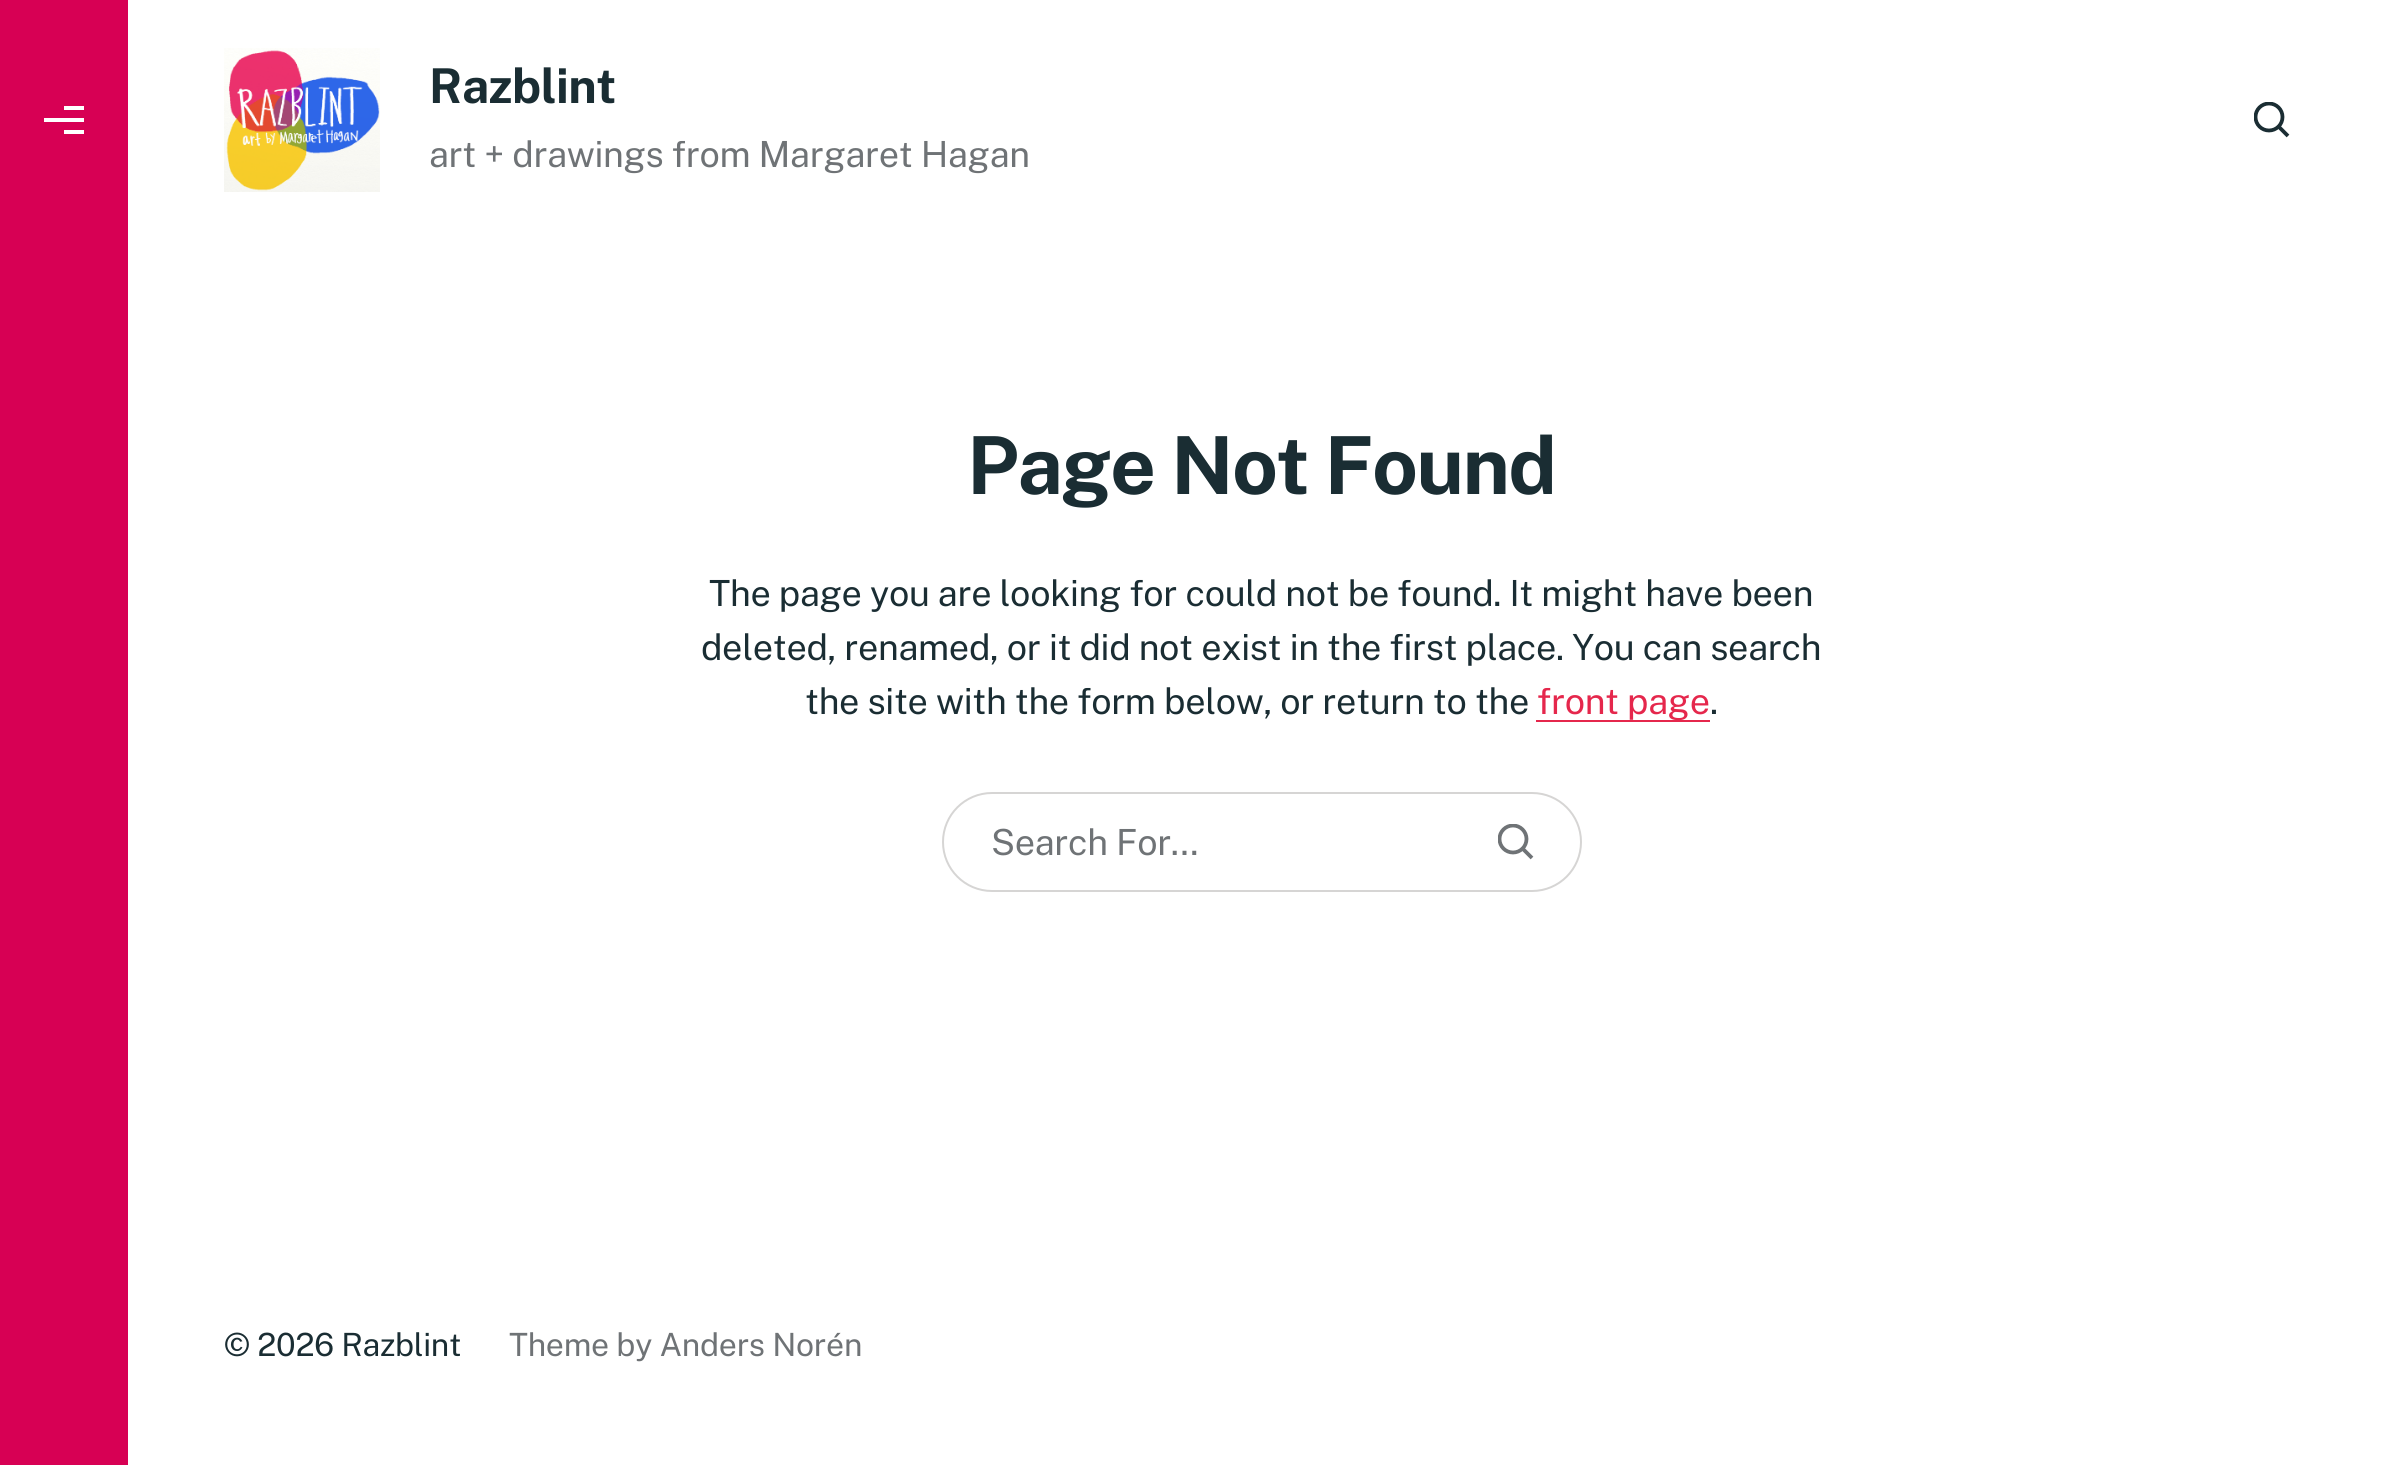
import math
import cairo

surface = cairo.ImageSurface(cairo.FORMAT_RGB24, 2394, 1465)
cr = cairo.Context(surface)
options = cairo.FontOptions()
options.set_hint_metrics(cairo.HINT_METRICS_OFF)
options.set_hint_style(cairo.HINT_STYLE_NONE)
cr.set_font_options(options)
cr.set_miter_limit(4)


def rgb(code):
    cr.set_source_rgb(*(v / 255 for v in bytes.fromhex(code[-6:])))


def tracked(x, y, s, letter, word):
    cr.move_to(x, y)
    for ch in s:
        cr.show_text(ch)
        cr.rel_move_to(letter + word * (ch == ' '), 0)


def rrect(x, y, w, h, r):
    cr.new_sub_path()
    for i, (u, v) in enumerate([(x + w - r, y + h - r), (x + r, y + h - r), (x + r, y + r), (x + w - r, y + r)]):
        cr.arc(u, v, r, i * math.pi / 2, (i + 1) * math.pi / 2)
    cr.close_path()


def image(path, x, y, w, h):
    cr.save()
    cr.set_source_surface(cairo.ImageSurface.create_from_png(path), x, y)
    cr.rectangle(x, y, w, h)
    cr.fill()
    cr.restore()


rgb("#ffffff")
cr.paint()
for x, y, w, h, color in [
    (0, 0, 128, 1465, "#d70054"),
    (64, 106, 20, 4, "#ffffff"),
    (44, 118, 40, 4, "#ffffff"),
    (64, 130, 20, 4, "#ffffff"),
]:
    rgb(color)
    cr.rectangle(x, y, w, h)
    cr.fill()
image("img/1.png", 224, 48, 156, 144)
cr.save()
cr.rectangle(2254, 102, 36, 36)
cr.clip()
cr.arc(2269, 117, 13.5, 0, 2 * math.pi)
rgb("#1a2d33")
cr.set_line_width(3.8)
cr.stroke()
cr.restore()
cr.new_path()
cr.move_to(2288, 136)
cr.line_to(2277.5, 125.5)
rgb("#1a2d33")
cr.set_line_width(3.8)
cr.stroke()
rgb("#e5274c")
cr.rectangle(1536, 720, 174, 2)
cr.fill()
rrect(943, 793, 638, 98, 49)
rgb("#d6d5d4")
cr.set_line_width(2)
cr.stroke()
cr.save()
cr.rectangle(1498, 824, 36, 36)
cr.clip()
cr.arc(1513, 839, 13.5, 0, 2 * math.pi)
rgb("#6f7376")
cr.set_line_width(3.8)
cr.stroke()
cr.restore()
cr.new_path()
cr.move_to(1532, 858)
cr.line_to(1521.5, 847.5)
rgb("#6f7376")
cr.set_line_width(3.8)
cr.stroke()
cr.select_font_face("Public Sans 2 Thin")
cr.set_font_size(48)
rgb("#1a2d33")
tracked(429, 103, "Razblint", -0.5, 0)
cr.select_font_face("Public Sans Thin")
cr.set_font_size(36)
rgb("#6f7376")
tracked(429, 167, "art + drawings from Margaret Hagan", -0.35, 0)
cr.select_font_face("Public Sans 2 Thin")
cr.set_font_size(80)
rgb("#1a2d33")
tracked(967, 494, "Page Not Found", -1.6, 0)
cr.select_font_face("Public Sans Thin")
cr.set_font_size(36)
for x, y, s in [
    (709, 606, "The page you are looking for could not be found. It might have been"),
    (701, 660, "deleted, renamed, or it did not exist in the first place. You can search"),
    (805, 714, "the site with the form below, or return to the"),
]:
    tracked(x, y, s, -0.35, 0)
rgb("#e5274c")
tracked(1537, 714, "front page", -0.35, 0)
rgb("#1a2d33")
tracked(1710, 714, ".", -0.35, 0)
rgb("#6f7376")
tracked(991, 855, "Search For…", -0.35, 0)
cr.set_font_size(32)
rgb("#1a2d33")
tracked(224, 1356, "© 2026 Razblint", -0.3, 0)
rgb("#6f7376")
tracked(509, 1356, "Theme by Anders Norén", -0.3, 0)
surface.write_to_png("page.png")
